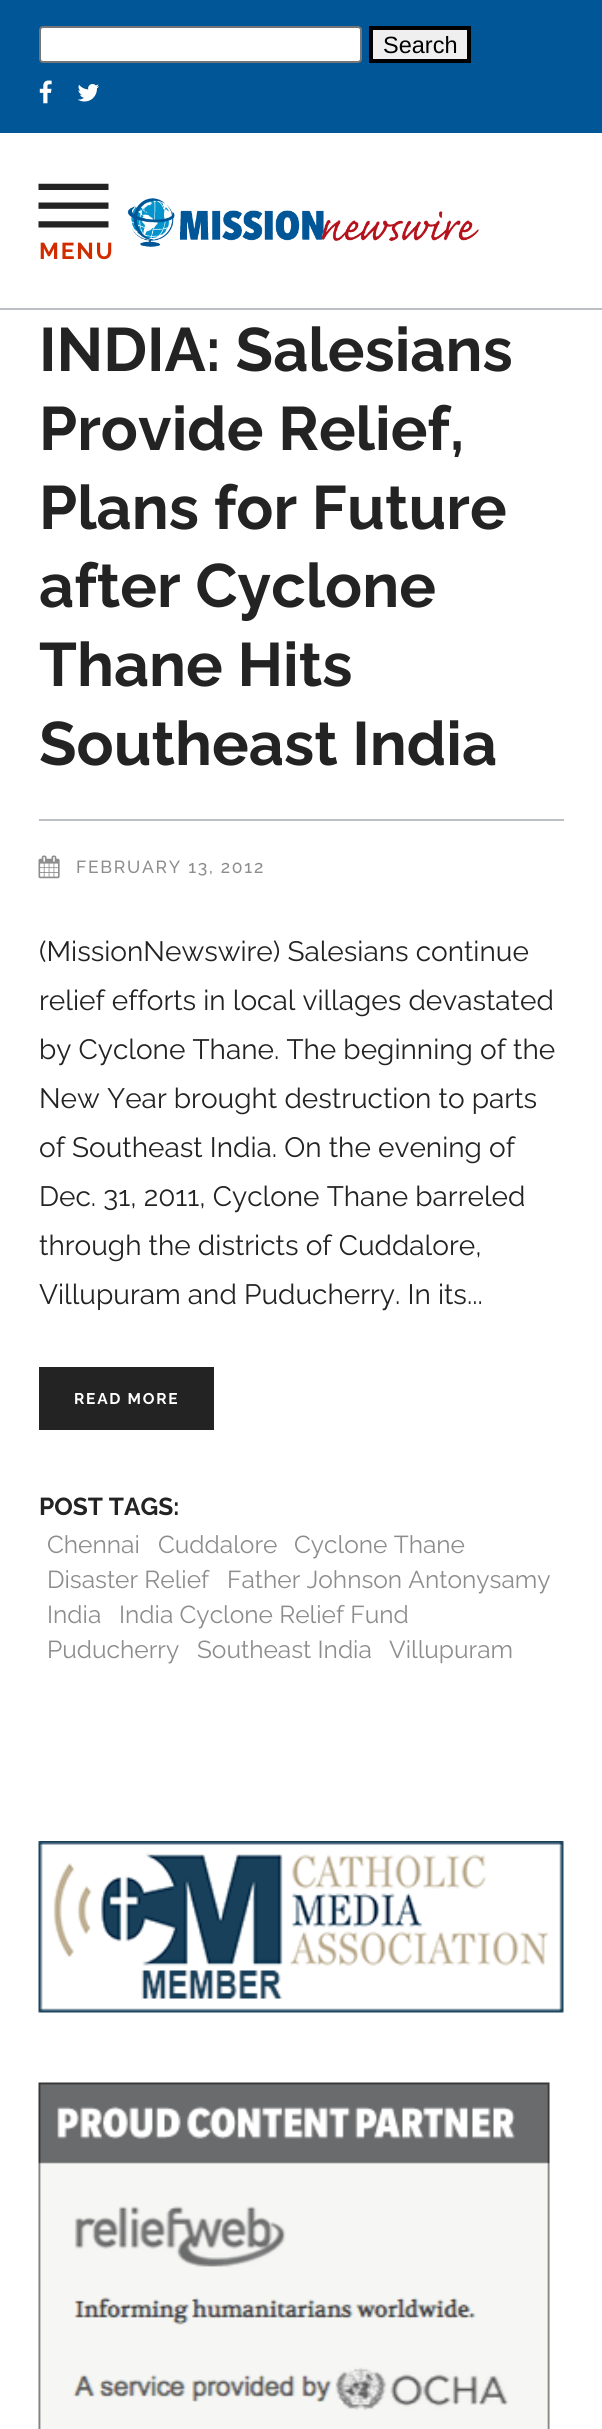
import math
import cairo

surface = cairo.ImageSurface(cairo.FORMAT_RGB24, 602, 2429)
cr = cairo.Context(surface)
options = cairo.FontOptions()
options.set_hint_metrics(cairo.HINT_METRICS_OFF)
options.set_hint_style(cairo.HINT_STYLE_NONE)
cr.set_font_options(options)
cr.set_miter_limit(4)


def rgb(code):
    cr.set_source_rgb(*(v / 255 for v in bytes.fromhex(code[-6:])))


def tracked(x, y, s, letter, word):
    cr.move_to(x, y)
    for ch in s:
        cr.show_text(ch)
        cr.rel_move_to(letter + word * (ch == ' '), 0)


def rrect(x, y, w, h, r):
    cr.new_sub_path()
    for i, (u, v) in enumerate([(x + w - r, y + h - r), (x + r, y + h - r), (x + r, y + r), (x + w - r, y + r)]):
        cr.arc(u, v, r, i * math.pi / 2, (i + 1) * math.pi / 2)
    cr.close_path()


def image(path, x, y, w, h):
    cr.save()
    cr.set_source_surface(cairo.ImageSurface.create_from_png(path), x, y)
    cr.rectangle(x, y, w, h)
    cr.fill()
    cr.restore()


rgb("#ffffff")
cr.paint()
rgb("#005696")
cr.rectangle(0, 0, 602, 133)
cr.fill()
rgb("#ffffff")
rrect(40, 27, 321, 35, 3)
cr.fill_preserve()
rgb("#767676")
cr.stroke()
rgb("#efefef")
cr.rectangle(371, 28, 98, 33)
cr.fill_preserve()
rgb("#000000")
cr.set_line_width(4)
cr.stroke()
image("img/1.png", 39, 80, 13, 24)
image("img/2.png", 77, 84, 22, 18)
rgb("#bcc0c4")
cr.rectangle(0, 308, 602, 2)
cr.fill()
image("img/3.png", 127, 198, 352, 49)
image("img/4.png", 38, 183, 71, 45)
cr.rectangle(39, 819, 525, 2)
cr.fill()
image("img/5.png", 38, 855, 22, 24)
rgb("#232323")
cr.rectangle(39, 1367, 175, 63)
cr.fill()
image("img/6.png", 38, 1841, 526, 172)
image("img/7.png", 38, 2082, 512, 347)
cr.select_font_face("Liberation Sans")
cr.set_font_size(23.5)
rgb("#000000")
cr.move_to(383, 53)
cr.show_text("Search")
cr.select_font_face("Raleway", cairo.FONT_SLANT_NORMAL, cairo.FONT_WEIGHT_BOLD)
cr.set_font_size(23)
rgb("#d12c00")
tracked(39, 259, "MENU", 1.75, 0)
cr.set_font_size(61.25)
rgb("#232323")
for x, y, s in [
    (39, 371, "INDIA: Salesians"),
    (39, 450, "Provide Relief,"),
    (39, 529, "Plans for Future"),
    (39, 607, "after Cyclone"),
    (39, 686, "Thane Hits"),
    (39, 765, "Southeast India"),
]:
    cr.move_to(x, y)
    cr.show_text(s)
cr.select_font_face("Raleway Medium")
cr.set_font_size(17.5)
rgb("#8d8d8d")
tracked(76, 873, "FEBRUARY 13, 2012", 1.75, 0)
cr.select_font_face("Raleway")
cr.set_font_size(28)
rgb("#232323")
for x, y, s in [
    (39, 961, "(MissionNewswire) Salesians continue"),
    (39, 1010, "relief efforts in local villages devastated"),
    (39, 1059, "by Cyclone Thane. The beginning of the"),
    (39, 1108, "New Year brought destruction to parts"),
    (39, 1157, "of Southeast India. On the evening of"),
    (39, 1206, "Dec. 31, 2011, Cyclone Thane barreled"),
    (39, 1255, "through the districts of Cuddalore,"),
    (39, 1304, "Villupuram and Puducherry. In its..."),
]:
    cr.move_to(x, y)
    cr.show_text(s)
cr.select_font_face("Raleway", cairo.FONT_SLANT_NORMAL, cairo.FONT_WEIGHT_BOLD)
cr.set_font_size(15.5)
rgb("#ffffff")
tracked(74, 1404, "READ MORE", 1.75, 0)
cr.set_font_size(24.5)
rgb("#232323")
cr.move_to(39, 1515)
cr.show_text("POST TAGS:")
cr.select_font_face("Raleway")
rgb("#8d8d8d")
for x, y, s in [
    (47, 1553, "Chennai"),
    (158, 1553, "Cuddalore"),
    (294, 1553, "Cyclone Thane"),
    (47, 1588, "Disaster Relief"),
    (227, 1588, "Father Johnson Antonysamy"),
    (47, 1623, "India"),
    (119, 1623, "India Cyclone Relief Fund"),
    (47, 1658, "Puducherry"),
    (197, 1658, "Southeast India"),
    (389, 1658, "Villupuram"),
]:
    cr.move_to(x, y)
    cr.show_text(s)
surface.write_to_png("page.png")
